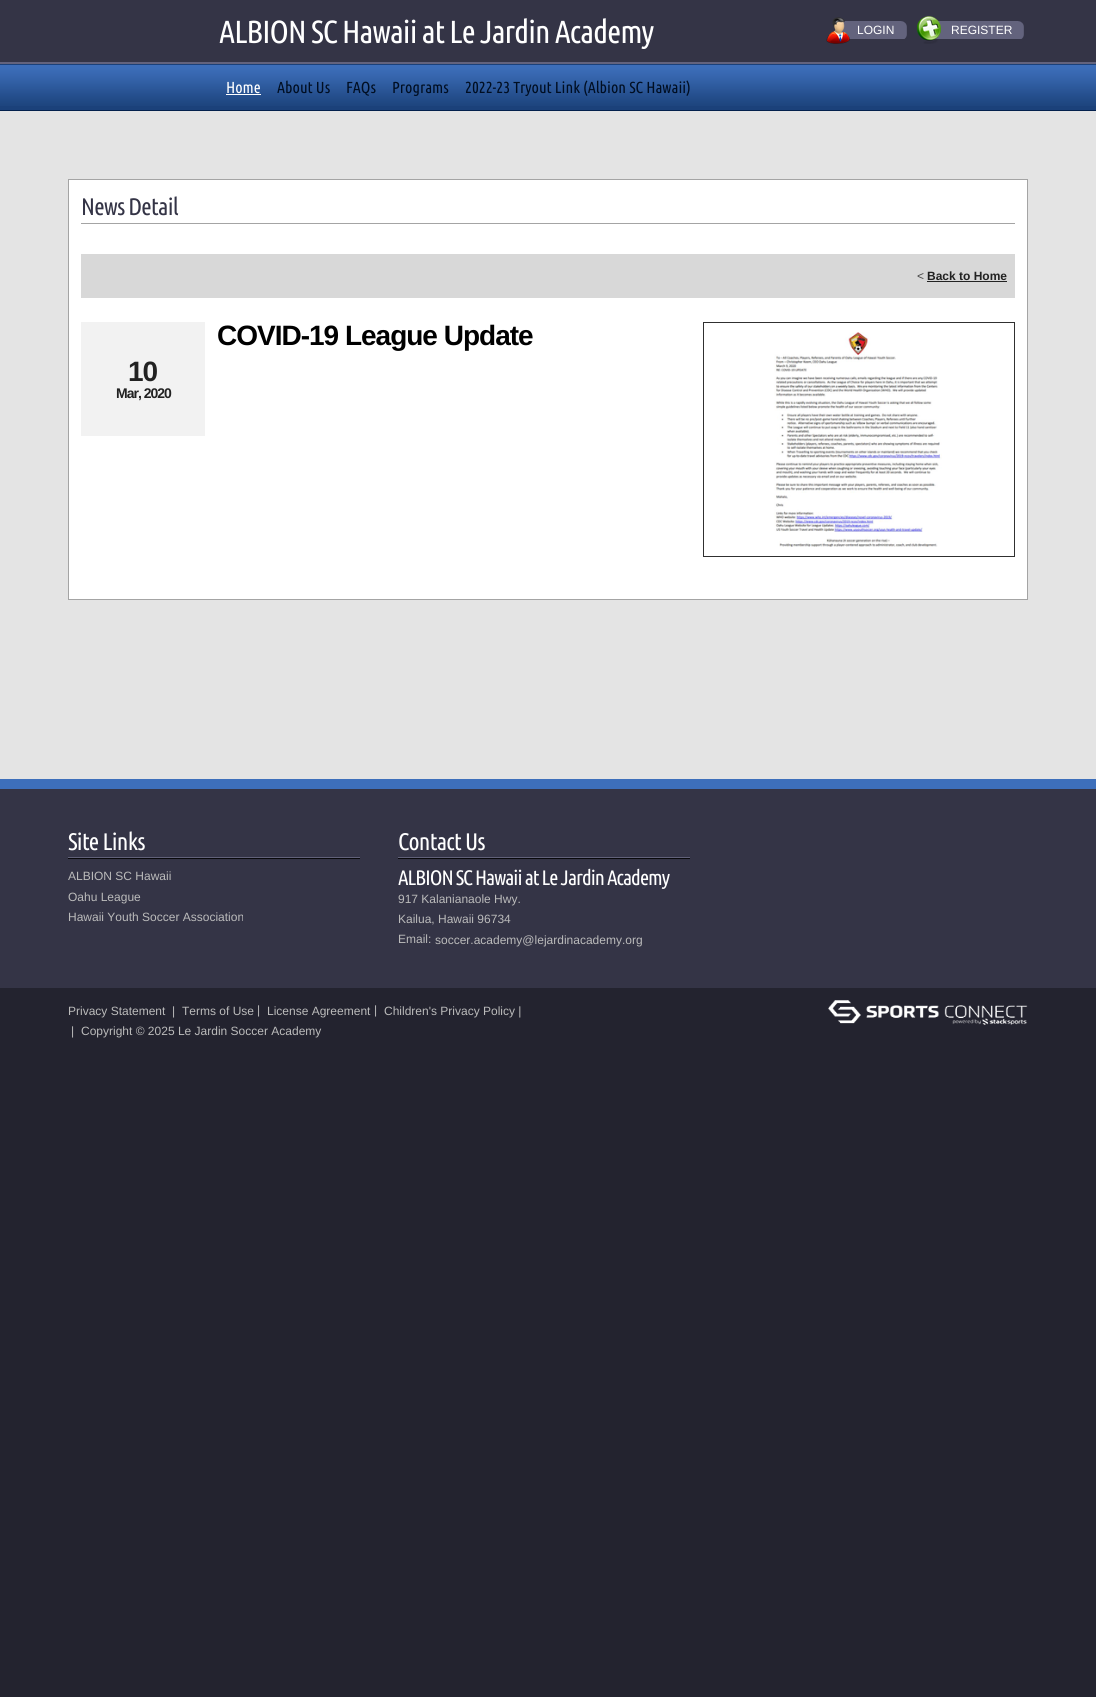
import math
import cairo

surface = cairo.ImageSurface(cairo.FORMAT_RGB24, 1096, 1697)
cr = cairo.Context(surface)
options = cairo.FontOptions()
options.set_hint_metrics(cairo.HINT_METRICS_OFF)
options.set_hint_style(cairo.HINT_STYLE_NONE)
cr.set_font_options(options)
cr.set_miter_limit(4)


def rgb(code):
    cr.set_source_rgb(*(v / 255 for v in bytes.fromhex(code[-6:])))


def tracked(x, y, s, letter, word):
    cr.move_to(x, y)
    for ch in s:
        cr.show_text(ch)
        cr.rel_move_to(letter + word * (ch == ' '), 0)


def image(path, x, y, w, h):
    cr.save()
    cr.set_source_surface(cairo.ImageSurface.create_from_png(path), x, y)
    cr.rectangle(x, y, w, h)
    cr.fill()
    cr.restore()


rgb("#23232f")
cr.paint()
for x, y, w, h, color in [
    (0, 111, 1096, 668, "#e4e4e4"),
    (0, 0, 1096, 62, "#343446"),
    (0, 62, 1096, 2, "#63637d"),
]:
    rgb(color)
    cr.rectangle(x, y, w, h)
    cr.fill()
image("img/2.png", 841, 21, 66, 18)
image("img/1.png", 826, 17, 24, 27)
image("img/4.png", 935, 21, 89, 18)
image("img/3.png", 917, 16, 24, 28)
rgb("#1b417a")
cr.rectangle(0, 64, 1096, 46)
cr.fill()
image("img/5.png", 0, 65, 1096, 41)
rgb("#03204c")
cr.rectangle(0, 110, 1096, 1)
cr.fill()
rgb("#ffffff")
cr.rectangle(226, 94, 35, 1)
cr.fill()
cr.rectangle(68.5, 179.5, 959, 420)
cr.fill_preserve()
rgb("#a4a4a4")
cr.set_line_width(1)
cr.stroke()
for x, y, w, h, color in [
    (81, 223, 934, 1, "#a4a4a4"),
    (81, 254, 934, 44, "#d8d8d8"),
    (927, 281, 80, 1, "#222222"),
]:
    rgb(color)
    cr.rectangle(x, y, w, h)
    cr.fill()
cr.rectangle(703.5, 322.5, 311, 234)
rgb("#303030")
cr.stroke()
image("img/6.png", 774, 332, 168, 215)
for x, y, w, h, color in [
    (81, 322, 124, 114, "#f2f2f2"),
    (0, 789, 1096, 199, "#343446"),
    (0, 779, 1096, 10, "#3d6fbb"),
    (68, 857, 292, 1, "#616179"),
    (68, 858, 292, 1, "#09090c"),
    (398, 857, 292, 1, "#616179"),
    (398, 858, 292, 1, "#09090c"),
]:
    rgb(color)
    cr.rectangle(x, y, w, h)
    cr.fill()
image("img/7.png", 828, 1000, 200, 25)
cr.select_font_face("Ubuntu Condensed")
cr.set_font_size(32)
rgb("#ffffff")
tracked(219, 43, "ALBION SC Hawaii at Le Jardin Academy", -0.95, 0)
cr.select_font_face("Liberation Sans")
cr.set_font_size(12)
cr.move_to(857, 34)
cr.show_text("LOGIN")
cr.move_to(951, 34)
cr.show_text("REGISTER")
cr.select_font_face("Ubuntu Condensed")
cr.set_font_size(16)
cr.move_to(226, 93)
cr.show_text("Home")
rgb("#000e22")
for x, y, s in [
    (277, 93, "About Us"),
    (346, 93, "FAQs"),
    (392, 93, "Programs"),
    (465, 93, "2022-23 Tryout Link (Albion SC Hawaii)"),
]:
    cr.move_to(x, y)
    cr.show_text(s)
cr.set_font_size(24)
rgb("#343446")
tracked(81, 215, "News Detail", -0.75, 0)
cr.select_font_face("Liberation Sans")
cr.set_font_size(12)
rgb("#464646")
cr.move_to(917, 280)
cr.show_text("<")
cr.select_font_face("Liberation Sans", cairo.FONT_SLANT_NORMAL, cairo.FONT_WEIGHT_BOLD)
rgb("#222222")
cr.move_to(927, 280)
cr.show_text("Back to Home")
cr.set_font_size(28)
rgb("#000000")
tracked(217, 345, "COVID-19 League Update", -1, 0)
rgb("#222222")
tracked(128, 381, "10", -1, 0)
cr.set_font_size(14)
tracked(116, 398, "Mar, 2020", -1, 0)
cr.select_font_face("Ubuntu Condensed")
cr.set_font_size(24)
rgb("#ffffff")
tracked(68, 850, "Site Links", -0.75, 0)
cr.select_font_face("Liberation Sans")
cr.set_font_size(12)
rgb("#bbbbbb")
for x, y, s in [
    (68, 880, "ALBION SC Hawaii"),
    (68, 901, "Oahu League"),
    (68, 921, "Hawaii Youth Soccer Association"),
]:
    cr.move_to(x, y)
    cr.show_text(s)
cr.select_font_face("Ubuntu Condensed")
cr.set_font_size(24)
rgb("#ffffff")
tracked(398, 850, "Contact Us", -0.75, 0)
cr.set_font_size(21)
tracked(398, 885, "ALBION SC Hawaii at Le Jardin Academy", -1, 0)
cr.select_font_face("Liberation Sans")
cr.set_font_size(12)
rgb("#bbbbbb")
for x, y, s in [
    (398, 903, "917 Kalanianaole Hwy."),
    (398, 923, "Kailua, Hawaii 96734"),
    (398, 943, "Email:"),
    (435, 944, "soccer.academy@lejardinacademy.org"),
    (68, 1015, "Privacy Statement"),
    (172, 1015, "|"),
    (182, 1015, "Terms of Use"),
    (257, 1014, "|"),
    (267, 1015, "License Agreement"),
    (374, 1014, "|"),
    (384, 1015, "Children's Privacy Policy |"),
    (71, 1035, "|"),
    (81, 1035, "Copyright © 2025 Le Jardin Soccer Academy"),
]:
    cr.move_to(x, y)
    cr.show_text(s)
surface.write_to_png("page.png")
